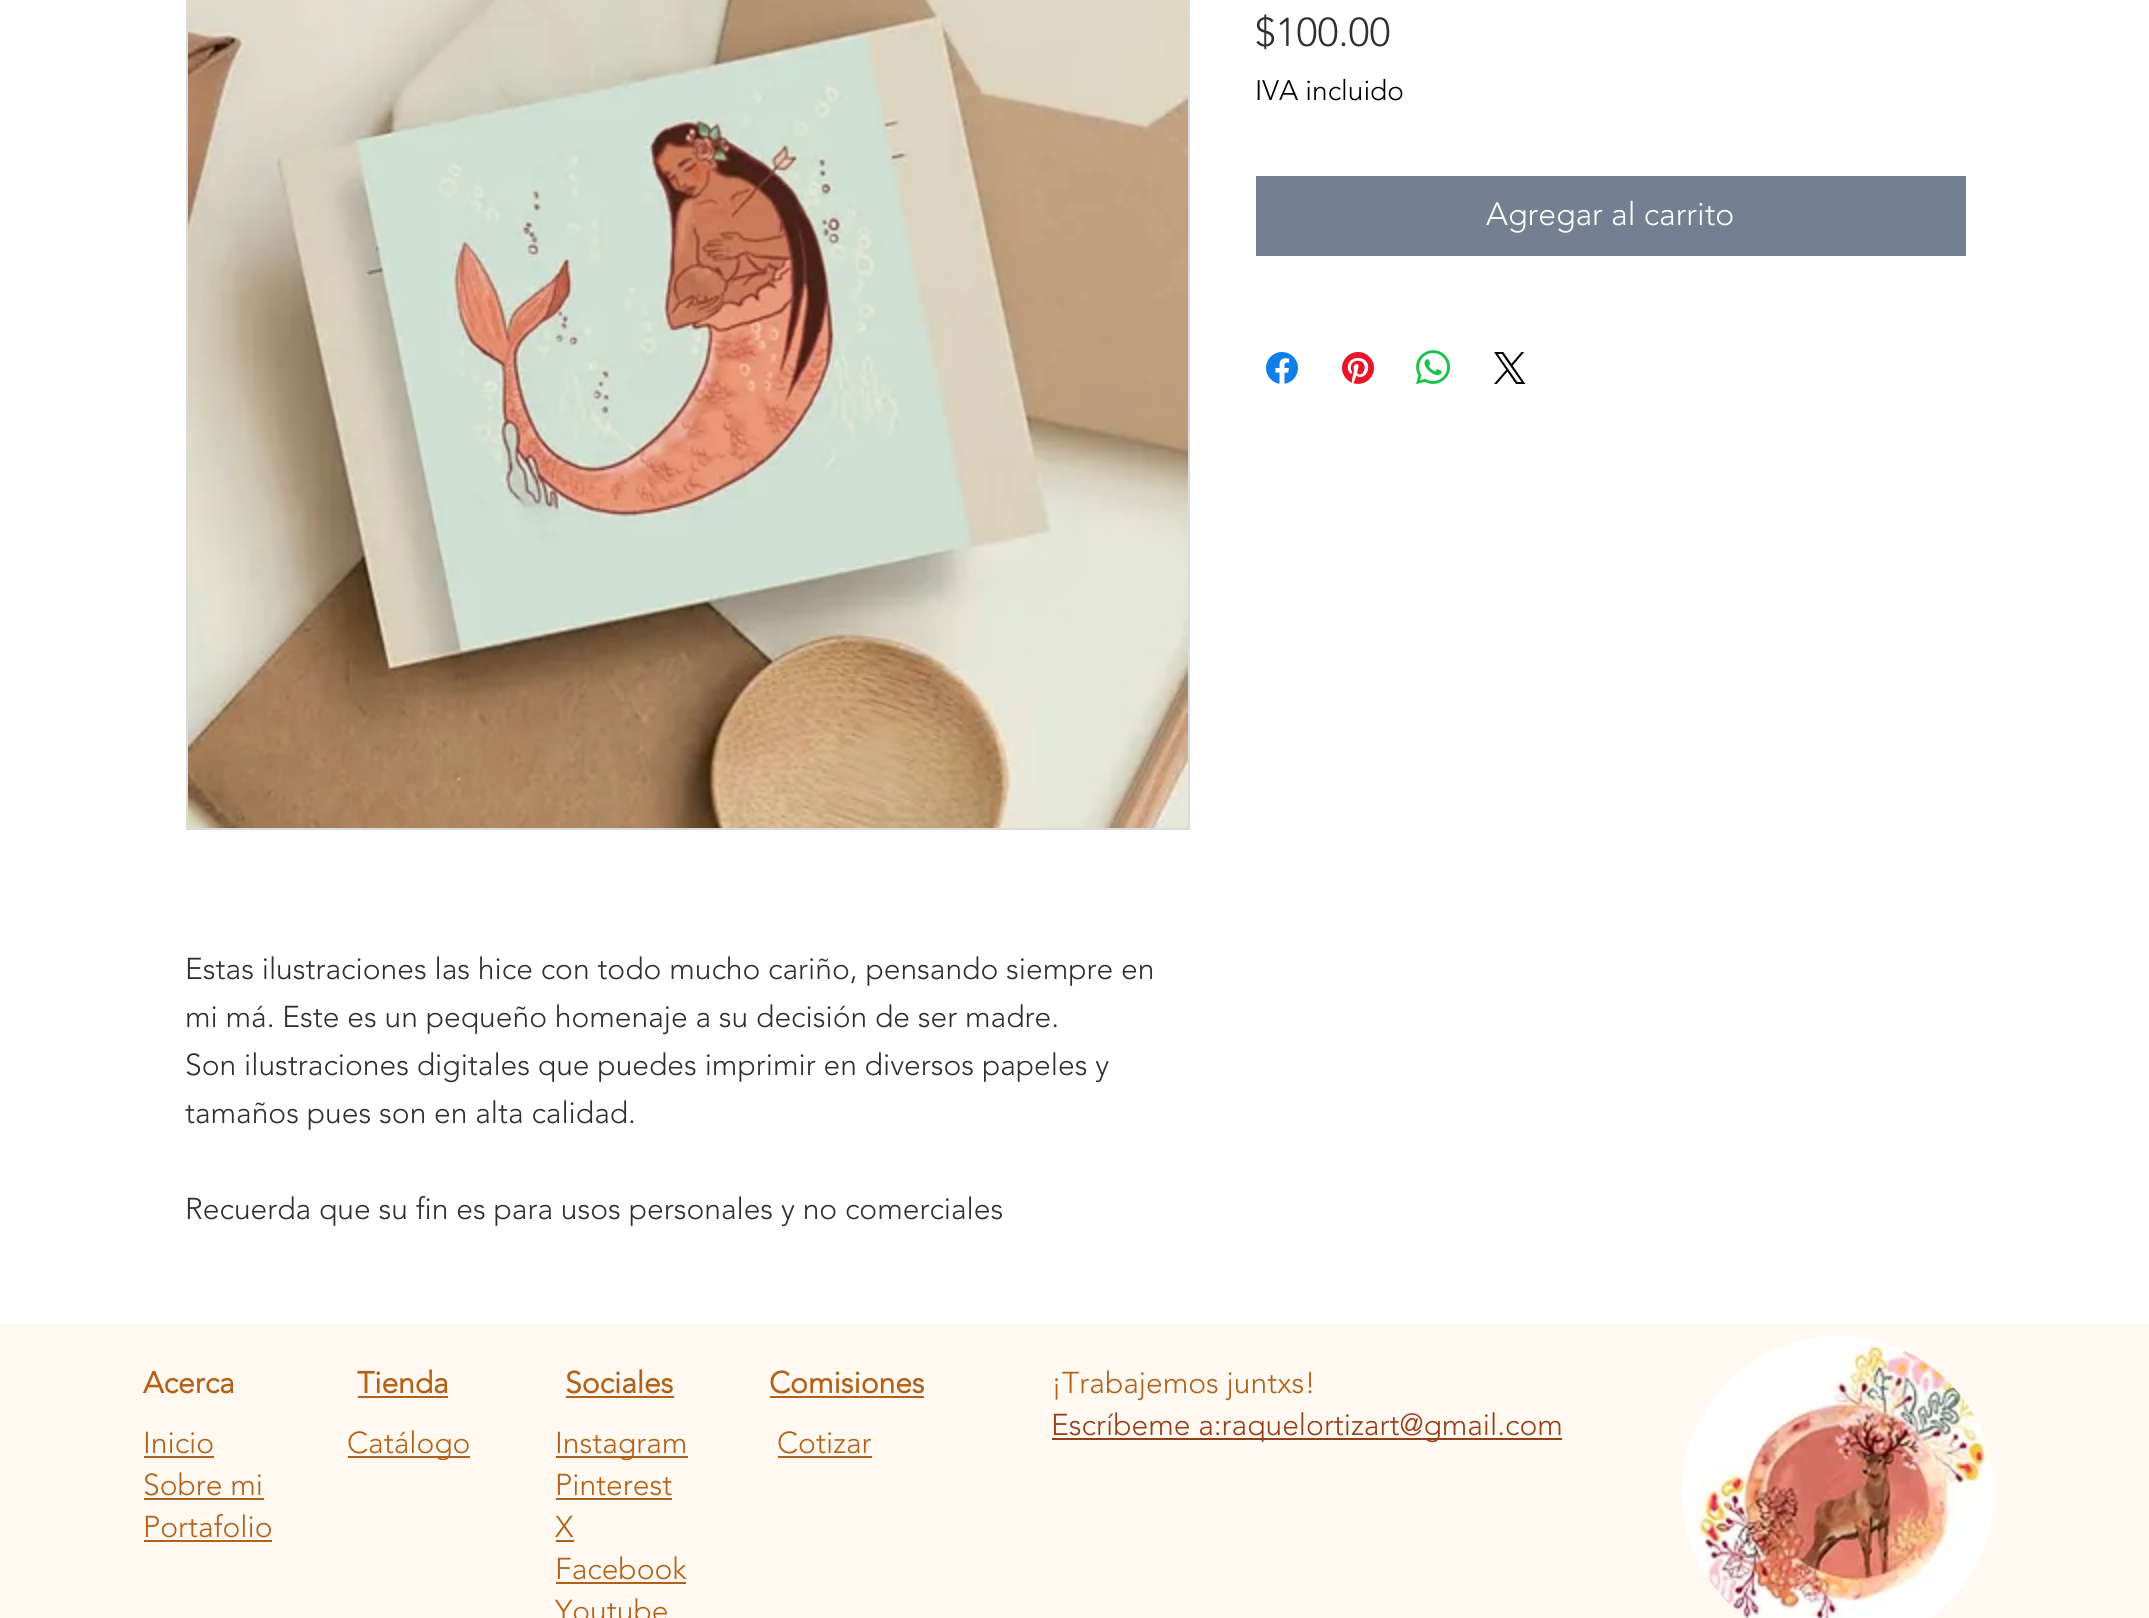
import math
import cairo

surface = cairo.ImageSurface(cairo.FORMAT_RGB24, 2149, 1618)
cr = cairo.Context(surface)
options = cairo.FontOptions()
options.set_hint_metrics(cairo.HINT_METRICS_OFF)
options.set_hint_style(cairo.HINT_STYLE_NONE)
cr.set_font_options(options)
cr.set_miter_limit(4)


def rgb(code):
    cr.set_source_rgb(*(v / 255 for v in bytes.fromhex(code[-6:])))


def image(path, x, y, w, h):
    cr.save()
    cr.set_source_surface(cairo.ImageSurface.create_from_png(path), x, y)
    cr.rectangle(x, y, w, h)
    cr.fill()
    cr.restore()


rgb("#ffffff")
cr.paint()
rgb("#748092")
cr.rectangle(1256, 176, 710, 80)
cr.fill()
image("img/1.png", 1266, 352, 32, 32)
image("img/2.png", 1342, 352, 32, 32)
image("img/3.png", 1416, 350, 34, 35)
image("img/4.png", 1494, 352, 32, 32)
cr.rectangle(187, -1, 1002, 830)
rgb("#dbdbdb")
cr.stroke()
image("img/5.png", 188, 0, 1000, 828)
for x, y, w, h, color in [
    (0, 1324, 2149, 294, "#fff9f1"),
    (358, 1396, 90, 2, "#b36119"),
    (566, 1396, 108, 2, "#b36119"),
    (770, 1396, 154, 2, "#b36119"),
    (1052, 1438, 510, 2, "#963e18"),
]:
    rgb(color)
    cr.rectangle(x, y, w, h)
    cr.fill()
image("img/6.png", 1682, 1336, 312, 282)
for x, y, w, h, color in [
    (144, 1456, 70, 2, "#b36119"),
    (348, 1456, 122, 2, "#b36119"),
    (556, 1456, 132, 2, "#b36119"),
    (778, 1456, 94, 2, "#b36119"),
    (144, 1498, 120, 2, "#b36119"),
    (556, 1498, 116, 2, "#b36119"),
    (144, 1540, 128, 2, "#b36119"),
    (556, 1540, 18, 2, "#b36119"),
    (556, 1582, 130, 2, "#b36119"),
]:
    rgb(color)
    cr.rectangle(x, y, w, h)
    cr.fill()
cr.select_font_face("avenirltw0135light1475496 Light")
cr.set_font_size(40)
rgb("#303030")
cr.move_to(1255, 46)
cr.show_text("$100.00")
cr.set_font_size(28)
rgb("#000000")
cr.move_to(1255, 100)
cr.show_text("IVA incluido")
cr.set_font_size(32)
rgb("#ffffff")
cr.move_to(1486, 225)
cr.show_text("Agregar al carrito")
cr.set_font_size(30)
rgb("#303030")
for x, y, s in [
    (185, 979, "Estas ilustraciones las hice con todo mucho cariño, pensando siempre en"),
    (185, 1027, "mi má. Este es un pequeño homenaje a su decisión de ser madre."),
    (185, 1075, "Son ilustraciones digitales que puedes imprimir en diversos papeles y"),
    (185, 1123, "tamaños pues son en alta calidad."),
    (185, 1219, "Recuerda que su fin es para usos personales y no comerciales"),
]:
    cr.move_to(x, y)
    cr.show_text(s)
cr.select_font_face("avenirltw0135light1475496", cairo.FONT_SLANT_NORMAL, cairo.FONT_WEIGHT_BOLD)
rgb("#b36119")
for x, y, s in [
    (143, 1393, "Acerca"),
    (357, 1393, "Tienda"),
    (565, 1393, "Sociales"),
    (769, 1393, "Comisiones"),
]:
    cr.move_to(x, y)
    cr.show_text(s)
cr.select_font_face("avenirltw0135light1475496 Light")
cr.move_to(1051, 1393)
cr.show_text("¡Trabajemos juntxs!")
rgb("#963e18")
cr.move_to(1051, 1435)
cr.show_text("Escríbeme a:raquelortizart@gmail.com")
rgb("#b36119")
for x, y, s in [
    (143, 1453, "Inicio"),
    (347, 1453, "Catálogo"),
    (555, 1453, "Instagram"),
    (777, 1453, "Cotizar"),
    (143, 1495, "Sobre mi"),
    (555, 1495, "Pinterest"),
    (143, 1537, "Portafolio"),
    (555, 1537, "X"),
    (555, 1579, "Facebook"),
    (555, 1621, "Youtube"),
]:
    cr.move_to(x, y)
    cr.show_text(s)
surface.write_to_png("page.png")
